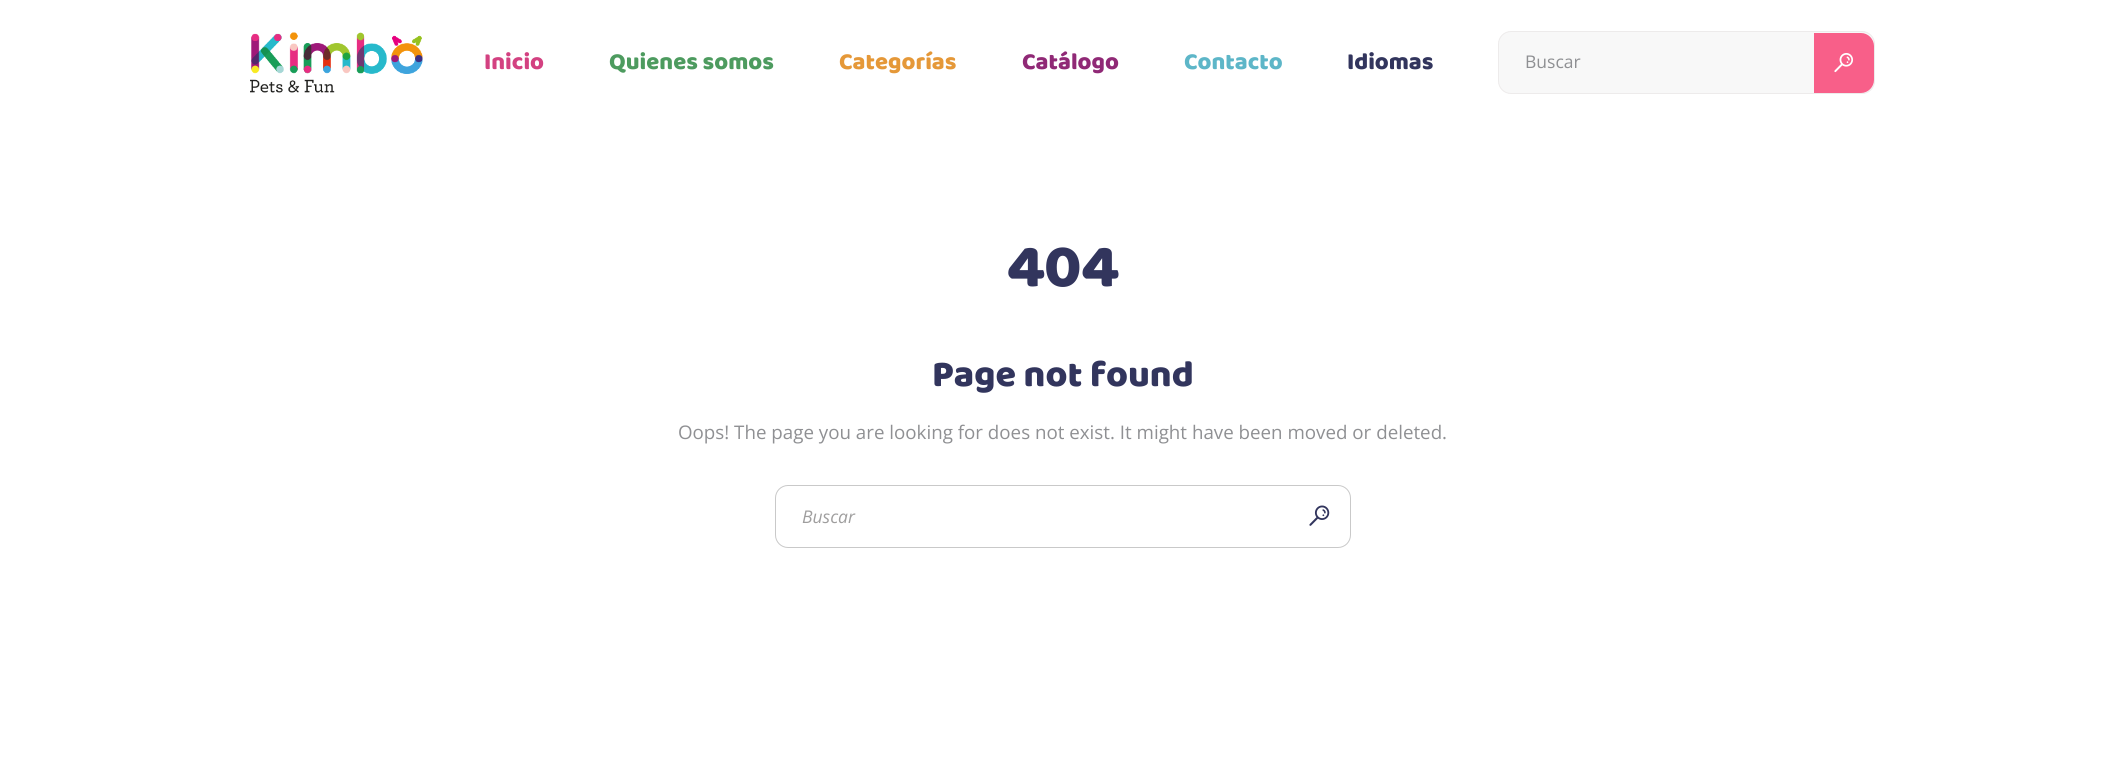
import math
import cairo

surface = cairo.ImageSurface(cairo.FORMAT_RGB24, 2124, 779)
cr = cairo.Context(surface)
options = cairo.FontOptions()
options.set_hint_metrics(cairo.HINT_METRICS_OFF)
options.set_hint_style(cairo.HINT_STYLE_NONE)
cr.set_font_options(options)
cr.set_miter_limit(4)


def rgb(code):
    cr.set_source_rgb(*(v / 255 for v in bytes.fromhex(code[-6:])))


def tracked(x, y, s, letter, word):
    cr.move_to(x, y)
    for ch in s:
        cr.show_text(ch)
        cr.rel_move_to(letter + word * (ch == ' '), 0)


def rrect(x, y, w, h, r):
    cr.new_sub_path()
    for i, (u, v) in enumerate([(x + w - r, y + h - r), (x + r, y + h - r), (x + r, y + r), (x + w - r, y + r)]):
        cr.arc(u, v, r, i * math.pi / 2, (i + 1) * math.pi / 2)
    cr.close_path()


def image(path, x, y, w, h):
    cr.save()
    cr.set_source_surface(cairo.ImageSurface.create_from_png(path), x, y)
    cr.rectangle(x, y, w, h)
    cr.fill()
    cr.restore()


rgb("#ffffff")
cr.paint()
image("img/1.png", 250, 32, 173, 61)
rgb("#f8f8f8")
rrect(1498.5, 31.5, 376, 62, 12.5)
cr.fill_preserve()
rgb("#edebeb")
cr.set_line_width(1)
cr.stroke()
rgb("#f85f89")
cr.new_path()
cr.move_to(1814, 33)
cr.line_to(1861, 33)
cr.curve_to(1868, 33, 1874, 39, 1874, 46)
cr.line_to(1874, 80)
cr.curve_to(1874, 87, 1868, 93, 1861, 93)
cr.line_to(1814, 93)
cr.close_path()
cr.fill()
image("img/2.png", 1834, 53, 19, 20)
rrect(775.5, 485.5, 575, 62, 12.5)
rgb("#c9c9c9")
cr.stroke()
image("img/3.png", 1309, 505, 21, 21)
cr.select_font_face("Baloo")
cr.set_font_size(23.75)
rgb("#d34181")
cr.move_to(484, 69)
cr.show_text("Inicio")
rgb("#4d9b5f")
cr.move_to(609, 69)
cr.show_text("Quienes somos")
rgb("#e59838")
cr.move_to(839, 69)
cr.show_text("Categorías")
rgb("#902976")
cr.move_to(1022, 69)
cr.show_text("Catálogo")
rgb("#5db6c8")
cr.move_to(1184, 69)
cr.show_text("Contacto")
rgb("#32355d")
cr.move_to(1347, 69)
cr.show_text("Idiomas")
cr.select_font_face("Open Sans")
cr.set_font_size(17.5)
rgb("#8f9093")
cr.move_to(1525, 68)
cr.show_text("Buscar")
cr.select_font_face("Baloo")
cr.set_font_size(62)
rgb("#32355d")
tracked(1007, 286, "404", -0.5, 0)
cr.set_font_size(37.5)
cr.move_to(932, 386)
cr.show_text("Page not found")
cr.select_font_face("Open Sans")
cr.set_font_size(18.75)
rgb("#8f9093")
cr.move_to(678, 439)
cr.show_text("Oops! The page you are looking for does not exist. It might have been moved or deleted.")
cr.select_font_face("Open Sans", cairo.FONT_SLANT_ITALIC)
cr.set_font_size(17.5)
rgb("#9f9e9e")
cr.move_to(802, 523)
cr.show_text("Buscar")
surface.write_to_png("page.png")
